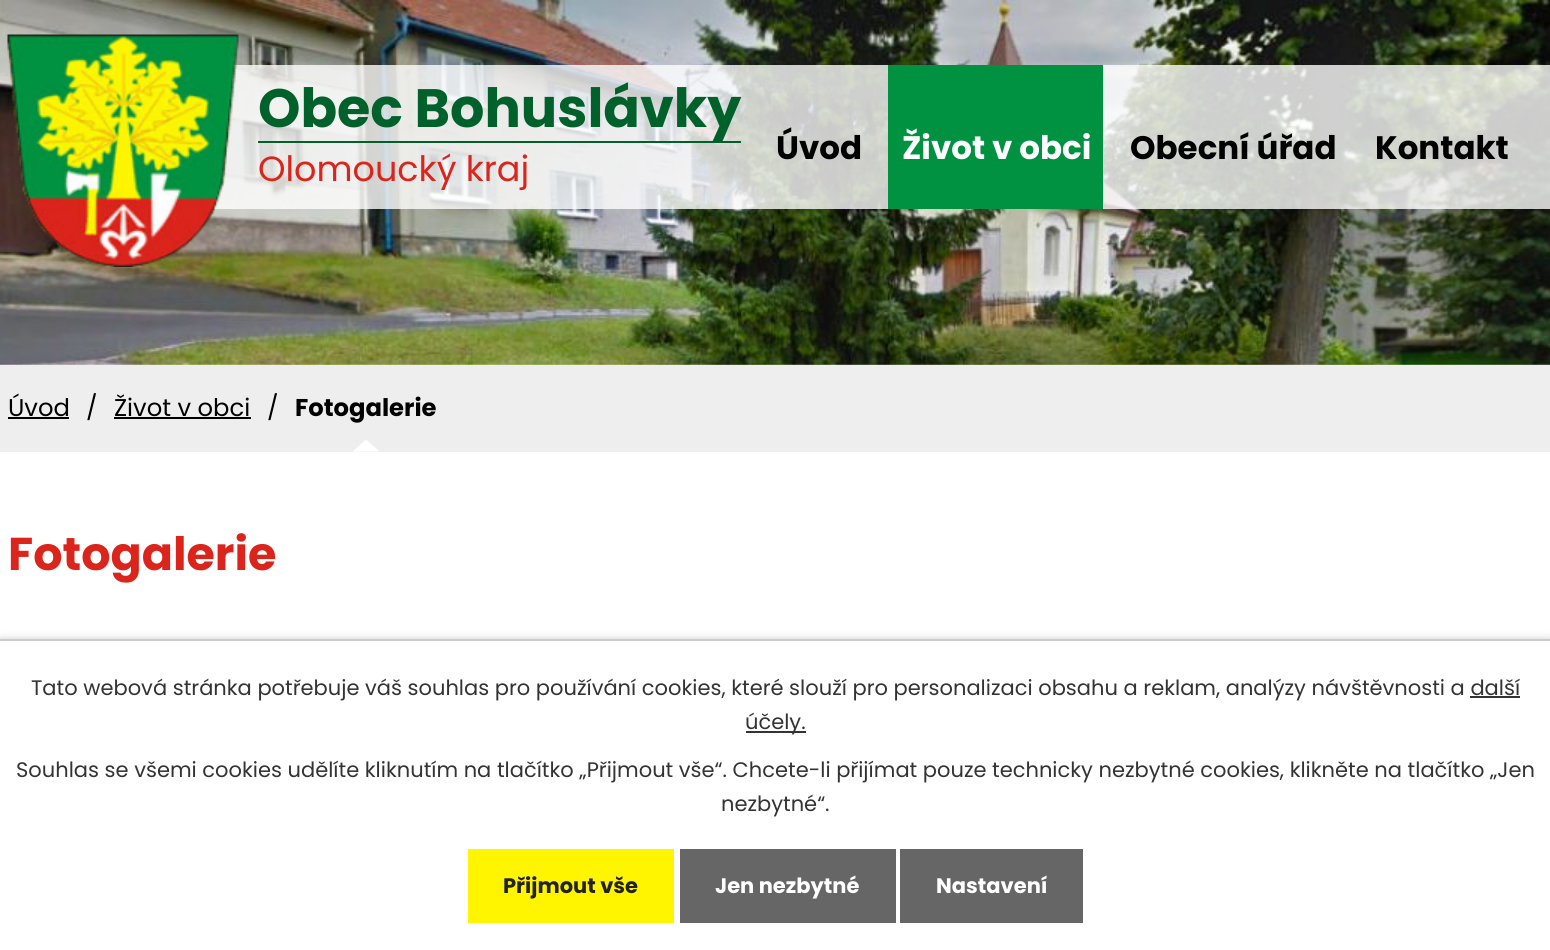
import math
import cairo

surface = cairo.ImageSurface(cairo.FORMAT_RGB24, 1550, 950)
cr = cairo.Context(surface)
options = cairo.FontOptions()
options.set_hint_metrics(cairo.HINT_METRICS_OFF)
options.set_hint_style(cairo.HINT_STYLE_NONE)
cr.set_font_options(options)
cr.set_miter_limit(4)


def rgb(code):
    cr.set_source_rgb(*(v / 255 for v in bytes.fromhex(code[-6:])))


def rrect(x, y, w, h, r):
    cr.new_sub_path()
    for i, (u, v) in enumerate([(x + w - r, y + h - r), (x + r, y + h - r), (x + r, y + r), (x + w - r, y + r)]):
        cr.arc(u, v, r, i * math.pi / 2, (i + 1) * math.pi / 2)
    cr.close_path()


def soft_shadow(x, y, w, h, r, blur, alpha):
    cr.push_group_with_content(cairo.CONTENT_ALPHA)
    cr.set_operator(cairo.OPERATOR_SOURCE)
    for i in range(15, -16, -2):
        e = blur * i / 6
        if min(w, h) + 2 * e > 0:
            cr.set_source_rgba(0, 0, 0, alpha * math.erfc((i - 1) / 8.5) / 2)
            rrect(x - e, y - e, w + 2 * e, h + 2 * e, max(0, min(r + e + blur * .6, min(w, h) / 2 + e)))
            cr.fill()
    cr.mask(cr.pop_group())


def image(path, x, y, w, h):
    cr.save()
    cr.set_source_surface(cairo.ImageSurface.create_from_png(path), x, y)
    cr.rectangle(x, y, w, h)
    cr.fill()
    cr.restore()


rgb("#ffffff")
cr.paint()
image("img/1.png", 0, 0, 1550, 365)
cr.set_source_rgba(1, 1, 1, 0.79)
cr.rectangle(150, 65, 1400, 144)
cr.fill()
image("img/2.png", 7, 34, 233, 233)
for x, y, w, h, color in [
    (258, 141, 483, 2, "#00612b"),
    (888, 65, 215, 144, "#009241"),
    (0, 365, 1550, 87, "#eeeeee"),
    (8, 417, 61, 2, "#000000"),
    (114, 417, 137, 2, "#000000"),
]:
    rgb(color)
    cr.rectangle(x, y, w, h)
    cr.fill()
rgb("#ffffff")
cr.new_path()
cr.move_to(379.5, 451.5)
cr.line_to(352.5, 451.5)
cr.line_to(366, 439.5)
cr.close_path()
cr.fill()
rgb("#000000")
soft_shadow(0, 639, 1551, 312, 0, 4, 0.2)
for x, y, w, h, color in [
    (0, 641, 1550, 309, "#ffffff"),
    (0, 639, 1550, 2, "#cccccc"),
    (1470, 696, 50, 2, "#333333"),
    (746, 731, 60, 2, "#333333"),
    (468, 849, 206, 74, "#fff500"),
    (680, 849, 216, 74, "#666666"),
    (900, 849, 183, 74, "#666666"),
]:
    rgb(color)
    cr.rectangle(x, y, w, h)
    cr.fill()
cr.select_font_face("Poppins", cairo.FONT_SLANT_NORMAL, cairo.FONT_WEIGHT_BOLD)
cr.set_font_size(54)
rgb("#00612b")
cr.move_to(258, 127)
cr.show_text("Obec Bohuslávky")
cr.select_font_face("Poppins")
cr.set_font_size(35)
rgb("#db241c")
cr.move_to(258, 181)
cr.show_text("Olomoucký kraj")
cr.select_font_face("Poppins", cairo.FONT_SLANT_NORMAL, cairo.FONT_WEIGHT_BOLD)
cr.set_font_size(32.5)
rgb("#000000")
cr.move_to(776, 159)
cr.show_text("Úvod")
rgb("#ffffff")
cr.move_to(902, 159)
cr.show_text("Život v obci")
rgb("#000000")
cr.move_to(1130, 159)
cr.show_text("Obecní úřad")
cr.move_to(1375, 159)
cr.show_text("Kontakt")
cr.select_font_face("Poppins")
cr.set_font_size(24.25)
for x, y, s in [
    (8, 416, "Úvod"),
    (86, 416, "/"),
    (114, 416, "Život v obci"),
    (267, 416, "/"),
]:
    cr.move_to(x, y)
    cr.show_text(s)
cr.select_font_face("Poppins", cairo.FONT_SLANT_NORMAL, cairo.FONT_WEIGHT_BOLD)
cr.move_to(295, 416)
cr.show_text("Fotogalerie")
cr.set_font_size(46)
rgb("#db241c")
cr.move_to(8, 570)
cr.show_text("Fotogalerie")
cr.select_font_face("Poppins")
cr.set_font_size(21)
rgb("#333333")
for x, y, s in [
    (31, 695, "Tato webová stránka potřebuje váš souhlas pro používání cookies, které slouží pro personalizaci obsahu a reklam, analýzy návštěvnosti a další"),
    (745, 729, "účely."),
    (16, 777, "Souhlas se všemi cookies udělíte kliknutím na tlačítko „Přijmout vše“. Chcete-li přijímat pouze technicky nezbytné cookies, klikněte na tlačítko „Jen"),
    (721, 811, "nezbytné“."),
]:
    cr.move_to(x, y)
    cr.show_text(s)
cr.select_font_face("Poppins", cairo.FONT_SLANT_NORMAL, cairo.FONT_WEIGHT_BOLD)
rgb("#222222")
cr.move_to(503, 893)
cr.show_text("Přijmout vše")
rgb("#ffffff")
cr.move_to(715, 893)
cr.show_text("Jen nezbytné")
cr.move_to(936, 893)
cr.show_text("Nastavení")
surface.write_to_png("page.png")
